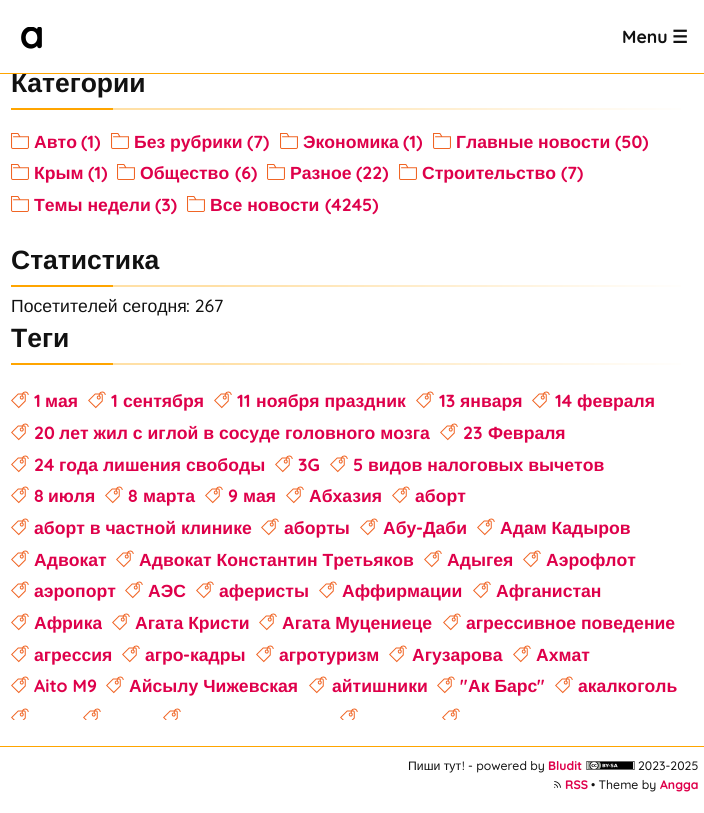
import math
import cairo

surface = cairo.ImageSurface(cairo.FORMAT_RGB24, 704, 813)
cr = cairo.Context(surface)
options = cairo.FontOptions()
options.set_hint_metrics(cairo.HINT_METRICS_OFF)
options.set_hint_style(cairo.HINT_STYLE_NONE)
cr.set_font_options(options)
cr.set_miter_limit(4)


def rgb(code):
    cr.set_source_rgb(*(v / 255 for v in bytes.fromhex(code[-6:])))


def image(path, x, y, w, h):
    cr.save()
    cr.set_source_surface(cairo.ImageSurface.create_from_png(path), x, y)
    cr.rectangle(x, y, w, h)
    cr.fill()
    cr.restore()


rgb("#ffffff")
cr.paint()
image("img/1.png", 21, 27, 21, 22)
gradient = cairo.LinearGradient(11, 87, 694, 86)
gradient.add_color_stop_rgba(0.15, 1, 0.647, 0, 1)
gradient.add_color_stop_rgba(0.15, 1, 0.878, 0.651, 1)
gradient.add_color_stop_rgba(0.3, 1, 0.878, 0.651, 1)
gradient.add_color_stop_rgba(1, 1, 1, 1, 1)
cr.set_source(gradient)
cr.rectangle(11, 108, 670, 2)
cr.fill()
image("img/2.png", 11, 133, 18, 16)
image("img/2.png", 111, 133, 18, 16)
image("img/2.png", 280, 133, 18, 16)
image("img/2.png", 433, 133, 18, 16)
image("img/2.png", 11, 164, 18, 16)
image("img/2.png", 117, 164, 18, 16)
image("img/2.png", 267, 164, 18, 16)
image("img/2.png", 399, 164, 18, 16)
image("img/2.png", 11, 196, 18, 16)
image("img/2.png", 187, 196, 18, 16)
gradient = cairo.LinearGradient(11, 264, 694, 264)
gradient.add_color_stop_rgba(0.15, 1, 0.647, 0, 1)
gradient.add_color_stop_rgba(0.15, 1, 0.878, 0.651, 1)
gradient.add_color_stop_rgba(0.3, 1, 0.878, 0.651, 1)
gradient.add_color_stop_rgba(1, 1, 1, 1, 1)
cr.set_source(gradient)
cr.rectangle(11, 285, 670, 2)
cr.fill()
gradient = cairo.LinearGradient(11, 342, 694, 342)
gradient.add_color_stop_rgba(0.15, 1, 0.647, 0, 1)
gradient.add_color_stop_rgba(0.15, 1, 0.878, 0.651, 1)
gradient.add_color_stop_rgba(0.3, 1, 0.878, 0.651, 1)
gradient.add_color_stop_rgba(1, 1, 1, 1, 1)
cr.set_source(gradient)
cr.rectangle(11, 363, 670, 2)
cr.fill()
image("img/3.png", 11, 391, 18, 18)
image("img/3.png", 88, 391, 18, 18)
image("img/3.png", 214, 391, 18, 18)
image("img/3.png", 416, 391, 18, 18)
image("img/3.png", 532, 391, 18, 18)
image("img/3.png", 11, 423, 18, 18)
image("img/3.png", 440, 423, 18, 18)
image("img/3.png", 11, 455, 18, 18)
image("img/3.png", 275, 455, 18, 18)
image("img/3.png", 330, 455, 18, 18)
image("img/3.png", 11, 486, 18, 18)
image("img/3.png", 105, 486, 18, 18)
image("img/3.png", 205, 486, 18, 18)
image("img/3.png", 286, 486, 18, 18)
image("img/3.png", 392, 486, 18, 18)
image("img/3.png", 11, 518, 18, 18)
image("img/3.png", 261, 518, 18, 18)
image("img/3.png", 360, 518, 18, 18)
image("img/3.png", 477, 518, 18, 18)
image("img/3.png", 11, 550, 18, 18)
image("img/3.png", 116, 550, 18, 18)
image("img/3.png", 424, 550, 18, 18)
image("img/3.png", 523, 550, 18, 18)
image("img/3.png", 11, 581, 18, 18)
image("img/3.png", 125, 581, 18, 18)
image("img/3.png", 196, 581, 18, 18)
image("img/3.png", 319, 581, 18, 18)
image("img/3.png", 473, 581, 18, 18)
image("img/3.png", 11, 613, 18, 18)
image("img/3.png", 112, 613, 18, 18)
image("img/3.png", 259, 613, 18, 18)
image("img/3.png", 443, 613, 18, 18)
image("img/3.png", 11, 645, 18, 18)
image("img/3.png", 122, 645, 18, 18)
image("img/3.png", 256, 645, 18, 18)
image("img/3.png", 389, 645, 18, 18)
image("img/3.png", 513, 645, 18, 18)
image("img/3.png", 11, 676, 18, 18)
image("img/3.png", 106, 676, 18, 18)
image("img/3.png", 309, 676, 18, 18)
image("img/3.png", 437, 676, 18, 18)
image("img/3.png", 555, 676, 18, 18)
image("img/4.png", 11, 708, 18, 12)
image("img/4.png", 83, 708, 18, 12)
image("img/4.png", 163, 708, 18, 12)
image("img/4.png", 340, 708, 18, 12)
image("img/4.png", 442, 708, 18, 12)
rgb("#ffa500")
cr.rectangle(0, 746, 704, 1)
cr.fill()
image("img/5.png", 586, 761, 49, 9)
image("img/6.png", 554, 781, 7, 7)
cr.select_font_face("Quicksand", cairo.FONT_SLANT_NORMAL, cairo.FONT_WEIGHT_BOLD)
cr.set_font_size(17.6)
rgb("#111111")
cr.move_to(622, 43)
cr.show_text("Menu")
cr.select_font_face("DejaVu Sans", cairo.FONT_SLANT_NORMAL, cairo.FONT_WEIGHT_BOLD)
cr.move_to(672, 43)
cr.show_text("☰")
cr.select_font_face("Liberation Sans", cairo.FONT_SLANT_NORMAL, cairo.FONT_WEIGHT_BOLD)
cr.set_font_size(26.5)
cr.move_to(11, 92)
cr.show_text("Категории")
rgb("#ffa500")
cr.rectangle(0, 73, 704, 1)
cr.fill()
cr.set_font_size(17.6)
rgb("#de004a")
cr.move_to(34, 148)
cr.show_text("Авто")
cr.select_font_face("Quicksand", cairo.FONT_SLANT_NORMAL, cairo.FONT_WEIGHT_BOLD)
cr.move_to(81, 148)
cr.show_text("(1)")
cr.select_font_face("Liberation Sans", cairo.FONT_SLANT_NORMAL, cairo.FONT_WEIGHT_BOLD)
cr.move_to(134, 148)
cr.show_text("Без рубрики")
cr.select_font_face("Quicksand", cairo.FONT_SLANT_NORMAL, cairo.FONT_WEIGHT_BOLD)
cr.move_to(247, 148)
cr.show_text("(7)")
cr.select_font_face("Liberation Sans", cairo.FONT_SLANT_NORMAL, cairo.FONT_WEIGHT_BOLD)
cr.move_to(303, 148)
cr.show_text("Экономика")
cr.select_font_face("Quicksand", cairo.FONT_SLANT_NORMAL, cairo.FONT_WEIGHT_BOLD)
cr.move_to(403, 148)
cr.show_text("(1)")
cr.select_font_face("Liberation Sans", cairo.FONT_SLANT_NORMAL, cairo.FONT_WEIGHT_BOLD)
cr.move_to(456, 148)
cr.show_text("Главные новости")
cr.select_font_face("Quicksand", cairo.FONT_SLANT_NORMAL, cairo.FONT_WEIGHT_BOLD)
cr.move_to(615, 148)
cr.show_text("(50)")
cr.select_font_face("Liberation Sans", cairo.FONT_SLANT_NORMAL, cairo.FONT_WEIGHT_BOLD)
cr.move_to(34, 179)
cr.show_text("Крым")
cr.select_font_face("Quicksand", cairo.FONT_SLANT_NORMAL, cairo.FONT_WEIGHT_BOLD)
cr.move_to(88, 179)
cr.show_text("(1)")
cr.select_font_face("Liberation Sans", cairo.FONT_SLANT_NORMAL, cairo.FONT_WEIGHT_BOLD)
cr.move_to(140, 179)
cr.show_text("Общество")
cr.select_font_face("Quicksand", cairo.FONT_SLANT_NORMAL, cairo.FONT_WEIGHT_BOLD)
cr.move_to(235, 179)
cr.show_text("(6)")
cr.select_font_face("Liberation Sans", cairo.FONT_SLANT_NORMAL, cairo.FONT_WEIGHT_BOLD)
cr.move_to(290, 179)
cr.show_text("Разное")
cr.select_font_face("Quicksand", cairo.FONT_SLANT_NORMAL, cairo.FONT_WEIGHT_BOLD)
cr.move_to(356, 179)
cr.show_text("(22)")
cr.select_font_face("Liberation Sans", cairo.FONT_SLANT_NORMAL, cairo.FONT_WEIGHT_BOLD)
cr.move_to(422, 179)
cr.show_text("Строительство")
cr.select_font_face("Quicksand", cairo.FONT_SLANT_NORMAL, cairo.FONT_WEIGHT_BOLD)
cr.move_to(561, 179)
cr.show_text("(7)")
cr.select_font_face("Liberation Sans", cairo.FONT_SLANT_NORMAL, cairo.FONT_WEIGHT_BOLD)
cr.move_to(34, 211)
cr.show_text("Темы недели")
cr.select_font_face("Quicksand", cairo.FONT_SLANT_NORMAL, cairo.FONT_WEIGHT_BOLD)
cr.move_to(155, 211)
cr.show_text("(3)")
cr.select_font_face("Liberation Sans", cairo.FONT_SLANT_NORMAL, cairo.FONT_WEIGHT_BOLD)
cr.move_to(210, 211)
cr.show_text("Все новости")
cr.select_font_face("Quicksand", cairo.FONT_SLANT_NORMAL, cairo.FONT_WEIGHT_BOLD)
cr.move_to(325, 211)
cr.show_text("(4245)")
cr.select_font_face("Liberation Sans", cairo.FONT_SLANT_NORMAL, cairo.FONT_WEIGHT_BOLD)
cr.set_font_size(26.5)
rgb("#111111")
cr.move_to(11, 269)
cr.show_text("Статистика")
cr.select_font_face("Liberation Sans")
cr.set_font_size(17.6)
cr.move_to(11, 312)
cr.show_text("Посетителей сегодня")
cr.select_font_face("Quicksand Medium")
cr.move_to(186, 312)
cr.show_text(": 267")
cr.select_font_face("Liberation Sans", cairo.FONT_SLANT_NORMAL, cairo.FONT_WEIGHT_BOLD)
cr.set_font_size(26.5)
cr.move_to(11, 347)
cr.show_text("Теги")
cr.select_font_face("Quicksand", cairo.FONT_SLANT_NORMAL, cairo.FONT_WEIGHT_BOLD)
cr.set_font_size(17.6)
rgb("#de004a")
cr.move_to(34, 407)
cr.show_text("1")
cr.select_font_face("Liberation Sans", cairo.FONT_SLANT_NORMAL, cairo.FONT_WEIGHT_BOLD)
cr.move_to(45, 407)
cr.show_text("мая")
cr.select_font_face("Quicksand", cairo.FONT_SLANT_NORMAL, cairo.FONT_WEIGHT_BOLD)
cr.move_to(111, 407)
cr.show_text("1")
cr.select_font_face("Liberation Sans", cairo.FONT_SLANT_NORMAL, cairo.FONT_WEIGHT_BOLD)
cr.move_to(123, 407)
cr.show_text("сентября")
cr.select_font_face("Quicksand", cairo.FONT_SLANT_NORMAL, cairo.FONT_WEIGHT_BOLD)
cr.move_to(237, 407)
cr.show_text("11")
cr.select_font_face("Liberation Sans", cairo.FONT_SLANT_NORMAL, cairo.FONT_WEIGHT_BOLD)
cr.move_to(256, 407)
cr.show_text("ноября праздник")
cr.select_font_face("Quicksand", cairo.FONT_SLANT_NORMAL, cairo.FONT_WEIGHT_BOLD)
cr.move_to(439, 407)
cr.show_text("13")
cr.select_font_face("Liberation Sans", cairo.FONT_SLANT_NORMAL, cairo.FONT_WEIGHT_BOLD)
cr.move_to(460, 407)
cr.show_text("января")
cr.select_font_face("Quicksand", cairo.FONT_SLANT_NORMAL, cairo.FONT_WEIGHT_BOLD)
cr.move_to(555, 407)
cr.show_text("14")
cr.select_font_face("Liberation Sans", cairo.FONT_SLANT_NORMAL, cairo.FONT_WEIGHT_BOLD)
cr.move_to(577, 407)
cr.show_text("февраля")
cr.select_font_face("Quicksand", cairo.FONT_SLANT_NORMAL, cairo.FONT_WEIGHT_BOLD)
cr.move_to(34, 439)
cr.show_text("20")
cr.select_font_face("Liberation Sans", cairo.FONT_SLANT_NORMAL, cairo.FONT_WEIGHT_BOLD)
cr.move_to(59, 439)
cr.show_text("лет жил с иглой в сосуде головного мозга")
cr.select_font_face("Quicksand", cairo.FONT_SLANT_NORMAL, cairo.FONT_WEIGHT_BOLD)
cr.move_to(463, 439)
cr.show_text("23")
cr.select_font_face("Liberation Sans", cairo.FONT_SLANT_NORMAL, cairo.FONT_WEIGHT_BOLD)
cr.move_to(488, 439)
cr.show_text("Февраля")
cr.select_font_face("Quicksand", cairo.FONT_SLANT_NORMAL, cairo.FONT_WEIGHT_BOLD)
cr.move_to(34, 471)
cr.show_text("24")
cr.select_font_face("Liberation Sans", cairo.FONT_SLANT_NORMAL, cairo.FONT_WEIGHT_BOLD)
cr.move_to(59, 471)
cr.show_text("года лишения свободы")
cr.select_font_face("Quicksand", cairo.FONT_SLANT_NORMAL, cairo.FONT_WEIGHT_BOLD)
cr.move_to(298, 471)
cr.show_text("3G")
cr.move_to(353, 471)
cr.show_text("5")
cr.select_font_face("Liberation Sans", cairo.FONT_SLANT_NORMAL, cairo.FONT_WEIGHT_BOLD)
cr.move_to(368, 471)
cr.show_text("видов налоговых вычетов")
cr.select_font_face("Quicksand", cairo.FONT_SLANT_NORMAL, cairo.FONT_WEIGHT_BOLD)
cr.move_to(34, 502)
cr.show_text("8")
cr.select_font_face("Liberation Sans", cairo.FONT_SLANT_NORMAL, cairo.FONT_WEIGHT_BOLD)
cr.move_to(48, 502)
cr.show_text("июля")
cr.select_font_face("Quicksand", cairo.FONT_SLANT_NORMAL, cairo.FONT_WEIGHT_BOLD)
cr.move_to(128, 502)
cr.show_text("8")
cr.select_font_face("Liberation Sans", cairo.FONT_SLANT_NORMAL, cairo.FONT_WEIGHT_BOLD)
cr.move_to(143, 502)
cr.show_text("марта")
cr.select_font_face("Quicksand", cairo.FONT_SLANT_NORMAL, cairo.FONT_WEIGHT_BOLD)
cr.move_to(228, 502)
cr.show_text("9")
cr.select_font_face("Liberation Sans", cairo.FONT_SLANT_NORMAL, cairo.FONT_WEIGHT_BOLD)
for x, y, s in [
    (243, 502, "мая"),
    (309, 502, "Абхазия"),
    (415, 502, "аборт"),
    (34, 534, "аборт в частной клинике"),
    (284, 534, "аборты"),
    (383, 534, "Абу"),
]:
    cr.move_to(x, y)
    cr.show_text(s)
cr.select_font_face("Quicksand", cairo.FONT_SLANT_NORMAL, cairo.FONT_WEIGHT_BOLD)
cr.move_to(416, 534)
cr.show_text("-")
cr.select_font_face("Liberation Sans", cairo.FONT_SLANT_NORMAL, cairo.FONT_WEIGHT_BOLD)
for x, y, s in [
    (423, 534, "Даби"),
    (500, 534, "Адам Кадыров"),
    (34, 566, "Адвокат"),
    (139, 566, "Адвокат Константин Третьяков"),
    (447, 566, "Адыгея"),
    (546, 566, "Аэрофлот"),
    (34, 597, "аэропорт"),
    (148, 597, "АЭС"),
    (219, 597, "аферисты"),
    (342, 597, "Аффирмации"),
    (496, 597, "Афганистан"),
    (34, 629, "Африка"),
    (135, 629, "Агата Кристи"),
    (282, 629, "Агата Муцениеце"),
    (466, 629, "агрессивное поведение"),
    (34, 661, "агрессия"),
    (145, 661, "агро"),
]:
    cr.move_to(x, y)
    cr.show_text(s)
cr.select_font_face("Quicksand", cairo.FONT_SLANT_NORMAL, cairo.FONT_WEIGHT_BOLD)
cr.move_to(183, 661)
cr.show_text("-")
cr.select_font_face("Liberation Sans", cairo.FONT_SLANT_NORMAL, cairo.FONT_WEIGHT_BOLD)
for x, y, s in [
    (190, 661, "кадры"),
    (279, 661, "агротуризм"),
    (412, 661, "Агузарова"),
    (536, 661, "Ахмат"),
]:
    cr.move_to(x, y)
    cr.show_text(s)
cr.select_font_face("Quicksand", cairo.FONT_SLANT_NORMAL, cairo.FONT_WEIGHT_BOLD)
cr.move_to(34, 692)
cr.show_text("Aito M9")
cr.select_font_face("Liberation Sans", cairo.FONT_SLANT_NORMAL, cairo.FONT_WEIGHT_BOLD)
cr.move_to(129, 692)
cr.show_text("Айсылу Чижевская")
cr.move_to(332, 692)
cr.show_text("айтишники")
cr.select_font_face("Quicksand", cairo.FONT_SLANT_NORMAL, cairo.FONT_WEIGHT_BOLD)
cr.move_to(460, 692)
cr.show_text("\"")
cr.select_font_face("Liberation Sans", cairo.FONT_SLANT_NORMAL, cairo.FONT_WEIGHT_BOLD)
cr.move_to(468, 692)
cr.show_text("Ак Барс")
cr.select_font_face("Quicksand", cairo.FONT_SLANT_NORMAL, cairo.FONT_WEIGHT_BOLD)
cr.move_to(537, 692)
cr.show_text("\"")
cr.select_font_face("Liberation Sans", cairo.FONT_SLANT_NORMAL, cairo.FONT_WEIGHT_BOLD)
cr.move_to(578, 692)
cr.show_text("акалкоголь")
cr.select_font_face("Liberation Sans")
cr.set_font_size(12.25)
rgb("#111111")
cr.move_to(408, 770)
cr.show_text("Пиши тут")
cr.select_font_face("Quicksand Medium")
cr.move_to(462, 770)
cr.show_text("! - powered by")
cr.select_font_face("Quicksand", cairo.FONT_SLANT_NORMAL, cairo.FONT_WEIGHT_BOLD)
rgb("#de004a")
cr.move_to(548, 770)
cr.show_text("Bludit")
cr.select_font_face("Quicksand Medium")
rgb("#111111")
cr.move_to(638, 770)
cr.show_text("2023-2025")
cr.select_font_face("Quicksand", cairo.FONT_SLANT_NORMAL, cairo.FONT_WEIGHT_BOLD)
rgb("#de004a")
cr.move_to(565, 789)
cr.show_text("RSS")
cr.select_font_face("Quicksand Medium")
rgb("#111111")
cr.move_to(591, 789)
cr.show_text("• Theme by")
cr.select_font_face("Quicksand", cairo.FONT_SLANT_NORMAL, cairo.FONT_WEIGHT_BOLD)
rgb("#de004a")
cr.move_to(660, 789)
cr.show_text("Angga")
surface.write_to_png("page.png")
